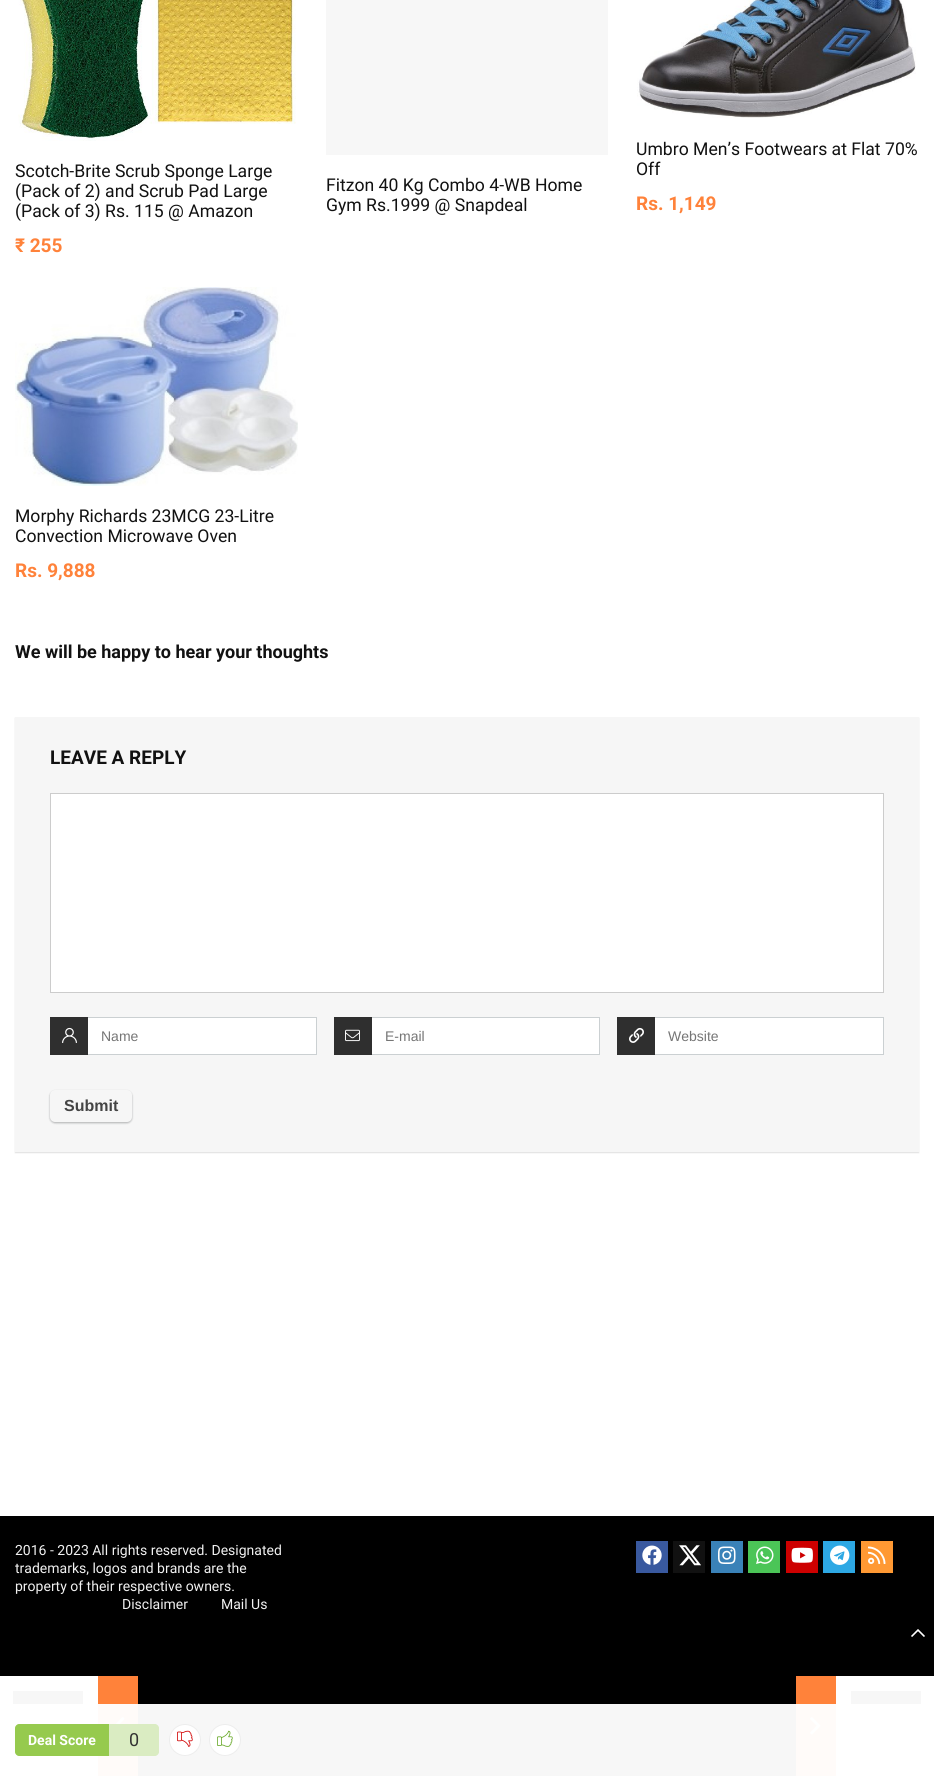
import math
import cairo

surface = cairo.ImageSurface(cairo.FORMAT_RGB24, 934, 1776)
cr = cairo.Context(surface)
options = cairo.FontOptions()
options.set_hint_metrics(cairo.HINT_METRICS_OFF)
options.set_hint_style(cairo.HINT_STYLE_NONE)
cr.set_font_options(options)
cr.set_miter_limit(4)


def rgb(code):
    cr.set_source_rgb(*(v / 255 for v in bytes.fromhex(code[-6:])))


def rrect(x, y, w, h, r):
    cr.new_sub_path()
    for i, (u, v) in enumerate([(x + w - r, y + h - r), (x + r, y + h - r), (x + r, y + r), (x + w - r, y + r)]):
        cr.arc(u, v, r, i * math.pi / 2, (i + 1) * math.pi / 2)
    cr.close_path()


def soft_shadow(x, y, w, h, r, blur, alpha):
    cr.push_group_with_content(cairo.CONTENT_ALPHA)
    cr.set_operator(cairo.OPERATOR_SOURCE)
    for i in range(15, -16, -2):
        e = blur * i / 6
        if min(w, h) + 2 * e > 0:
            cr.set_source_rgba(0, 0, 0, alpha * math.erfc((i - 1) / 8.5) / 2)
            rrect(x - e, y - e, w + 2 * e, h + 2 * e, max(0, min(r + e + blur * .6, min(w, h) / 2 + e)))
            cr.fill()
    cr.mask(cr.pop_group())


def image(path, x, y, w, h):
    cr.save()
    cr.set_source_surface(cairo.ImageSurface.create_from_png(path), x, y)
    cr.rectangle(x, y, w, h)
    cr.fill()
    cr.restore()


rgb("#ffffff")
cr.paint()
image("img/1.png", 18, 0, 278, 141)
rgb("#f7f7f7")
cr.rectangle(326, 0, 282, 155)
cr.fill()
image("img/2.png", 637, 0, 279, 118)
image("img/3.png", 15, 287, 283, 199)
rgb("#000000")
soft_shadow(15, 718, 904, 435, 0, 0.5, 0.12)
rgb("#f6f6f6")
cr.rectangle(15, 717, 904, 435)
cr.fill()
rgb("#ffffff")
cr.rectangle(50.5, 793.5, 833, 199)
cr.fill_preserve()
rgb("#cccccc")
cr.set_line_width(1)
cr.stroke()
rgb("#ffffff")
cr.rectangle(88, 1018, 228, 36)
cr.fill()
cr.rectangle(50.5, 1017.5, 266, 37)
rgb("#cbd0d2")
cr.stroke()
rgb("#2f2f2f")
cr.rectangle(50, 1017, 38, 38)
cr.fill()
image("img/4.png", 62, 1027, 15, 16)
rgb("#ffffff")
cr.rectangle(372, 1018, 227, 36)
cr.fill()
cr.rectangle(334.5, 1017.5, 265, 37)
rgb("#cbd0d2")
cr.stroke()
rgb("#2f2f2f")
cr.rectangle(334, 1017, 38, 38)
cr.fill()
image("img/5.png", 345, 1029, 15, 13)
rgb("#ffffff")
cr.rectangle(655, 1018, 228, 36)
cr.fill()
cr.rectangle(617.5, 1017.5, 266, 37)
rgb("#cbd0d2")
cr.stroke()
rgb("#2f2f2f")
cr.rectangle(617, 1017, 38, 38)
cr.fill()
image("img/6.png", 629, 1027, 15, 16)
rgb("#000000")
soft_shadow(50, 1091, 82, 32, 5, 1, 0.08)
rgb("#3c4043")
soft_shadow(50, 1091, 82, 32, 5, 1, 0.3)
rgb("#f6f6f6")
rrect(50, 1090, 82, 32, 5)
cr.fill()
for x, y, w, h, color in [
    (0, 1516, 934, 188, "#000000"),
    (98, 1676, 40, 28, "#ff823a"),
    (98, 1704, 40, 72, "#fffbf9"),
    (0, 1676, 98, 28, "#ffffff"),
    (13, 1691, 70, 13, "#f7f7f7"),
]:
    rgb(color)
    cr.rectangle(x, y, w, h)
    cr.fill()
image("img/7.png", 115, 1717, 10, 7)
for x, y, w, h, color in [
    (796, 1676, 40, 28, "#ff823a"),
    (796, 1704, 40, 72, "#fffbf9"),
    (836, 1676, 98, 28, "#ffffff"),
    (851, 1691, 70, 13, "#f7f7f7"),
]:
    rgb(color)
    cr.rectangle(x, y, w, h)
    cr.fill()
image("img/8.png", 810, 1717, 11, 18)
rgb("#96ca4e")
cr.new_path()
cr.move_to(19, 1724)
cr.line_to(109, 1724)
cr.line_to(109, 1756)
cr.line_to(19, 1756)
cr.curve_to(17, 1756, 15, 1754, 15, 1752)
cr.line_to(15, 1728)
cr.curve_to(15, 1726, 17, 1724, 19, 1724)
cr.close_path()
cr.fill()
rgb("#f7f7f7")
cr.rectangle(138, 1704, 658, 72)
cr.fill()
rgb("#daecc2")
cr.new_path()
cr.move_to(109, 1724)
cr.line_to(155, 1724)
cr.curve_to(157, 1724, 159, 1726, 159, 1728)
cr.line_to(159, 1752)
cr.curve_to(159, 1754, 157, 1756, 155, 1756)
cr.line_to(109, 1756)
cr.close_path()
cr.fill()
rgb("#ffffff")
cr.arc(185, 1740, 15.5, 0, 2 * math.pi)
cr.fill_preserve()
rgb("#ededed")
cr.stroke()
image("img/9.png", 177, 1730, 16, 17)
rgb("#ffffff")
cr.arc(225, 1740, 15.5, 0, 2 * math.pi)
cr.fill_preserve()
rgb("#ededed")
cr.stroke()
image("img/10.png", 217, 1730, 16, 17)
rgb("#39599f")
cr.rectangle(636, 1541, 32, 32)
cr.fill()
image("img/11.png", 642, 1545, 20, 20)
rgb("#111111")
cr.rectangle(673, 1541, 32, 32)
cr.fill()
image("img/12.png", 679, 1545, 22, 21)
rgb("#3a82b8")
cr.rectangle(711, 1541, 32, 32)
cr.fill()
image("img/13.png", 718, 1546, 18, 18)
rgb("#4bc557")
cr.rectangle(748, 1541, 32, 32)
cr.fill()
image("img/14.png", 756, 1546, 18, 18)
rgb("#cd0000")
cr.rectangle(786, 1541, 32, 32)
cr.fill()
image("img/15.png", 791, 1547, 22, 16)
rgb("#2da8e4")
cr.rectangle(823, 1541, 32, 32)
cr.fill()
image("img/16.png", 830, 1545, 20, 20)
rgb("#ff9933")
cr.rectangle(861, 1541, 32, 32)
cr.fill()
image("img/17.png", 868, 1546, 18, 18)
image("img/18.png", 911, 1629, 14, 8)
cr.select_font_face("Roboto")
cr.set_font_size(17.6)
rgb("#111111")
for x, y, s in [
    (15, 177, "Scotch-Brite Scrub Sponge Large"),
    (15, 197, "(Pack of 2) and Scrub Pad Large"),
    (15, 217, "(Pack of 3) Rs. 115 @ Amazon"),
]:
    cr.move_to(x, y)
    cr.show_text(s)
cr.select_font_face("Roboto", cairo.FONT_SLANT_NORMAL, cairo.FONT_WEIGHT_BOLD)
cr.set_font_size(19)
rgb("#ff823a")
cr.move_to(15, 252)
cr.show_text("₹ 255")
cr.select_font_face("Roboto")
cr.set_font_size(17.6)
rgb("#111111")
for x, y, s in [
    (326, 191, "Fitzon 40 Kg Combo 4-WB Home"),
    (326, 211, "Gym Rs.1999 @ Snapdeal"),
    (636, 155, "Umbro Men’s Footwears at Flat 70%"),
    (636, 175, "Off"),
]:
    cr.move_to(x, y)
    cr.show_text(s)
cr.select_font_face("Roboto", cairo.FONT_SLANT_NORMAL, cairo.FONT_WEIGHT_BOLD)
cr.set_font_size(19)
rgb("#ff823a")
cr.move_to(636, 210)
cr.show_text("Rs. 1,149")
cr.select_font_face("Roboto")
cr.set_font_size(17.6)
rgb("#111111")
cr.move_to(15, 522)
cr.show_text("Morphy Richards 23MCG 23-Litre")
cr.move_to(15, 542)
cr.show_text("Convection Microwave Oven")
cr.select_font_face("Roboto", cairo.FONT_SLANT_NORMAL, cairo.FONT_WEIGHT_BOLD)
cr.set_font_size(19)
rgb("#ff823a")
cr.move_to(15, 577)
cr.show_text("Rs. 9,888")
cr.set_font_size(18)
rgb("#111111")
cr.move_to(15, 658)
cr.show_text("We will be happy to hear your thoughts")
cr.set_font_size(19)
cr.move_to(50, 764)
cr.show_text("LEAVE A REPLY")
cr.select_font_face("Liberation Sans")
cr.set_font_size(14)
rgb("#757575")
for x, y, s in [
    (101, 1041, "Name"),
    (385, 1041, "E-mail"),
    (668, 1041, "Website"),
]:
    cr.move_to(x, y)
    cr.show_text(s)
cr.select_font_face("Liberation Sans", cairo.FONT_SLANT_NORMAL, cairo.FONT_WEIGHT_BOLD)
cr.set_font_size(16)
rgb("#444444")
cr.move_to(64, 1111)
cr.show_text("Submit")
cr.select_font_face("Roboto", cairo.FONT_SLANT_NORMAL, cairo.FONT_WEIGHT_BOLD)
cr.set_font_size(14)
rgb("#ffffff")
cr.move_to(28, 1745)
cr.show_text("Deal Score")
cr.select_font_face("Roboto")
cr.set_font_size(18)
rgb("#333333")
cr.move_to(129, 1746)
cr.show_text("0")
cr.set_font_size(14)
rgb("#f1f1f1")
for x, y, s in [
    (15, 1555, "2016 - 2023 All rights reserved. Designated"),
    (15, 1573, "trademarks, logos and brands are the"),
    (15, 1591, "property of their respective owners."),
    (122, 1609, "Disclaimer"),
    (221, 1609, "Mail Us"),
]:
    cr.move_to(x, y)
    cr.show_text(s)
surface.write_to_png("page.png")
